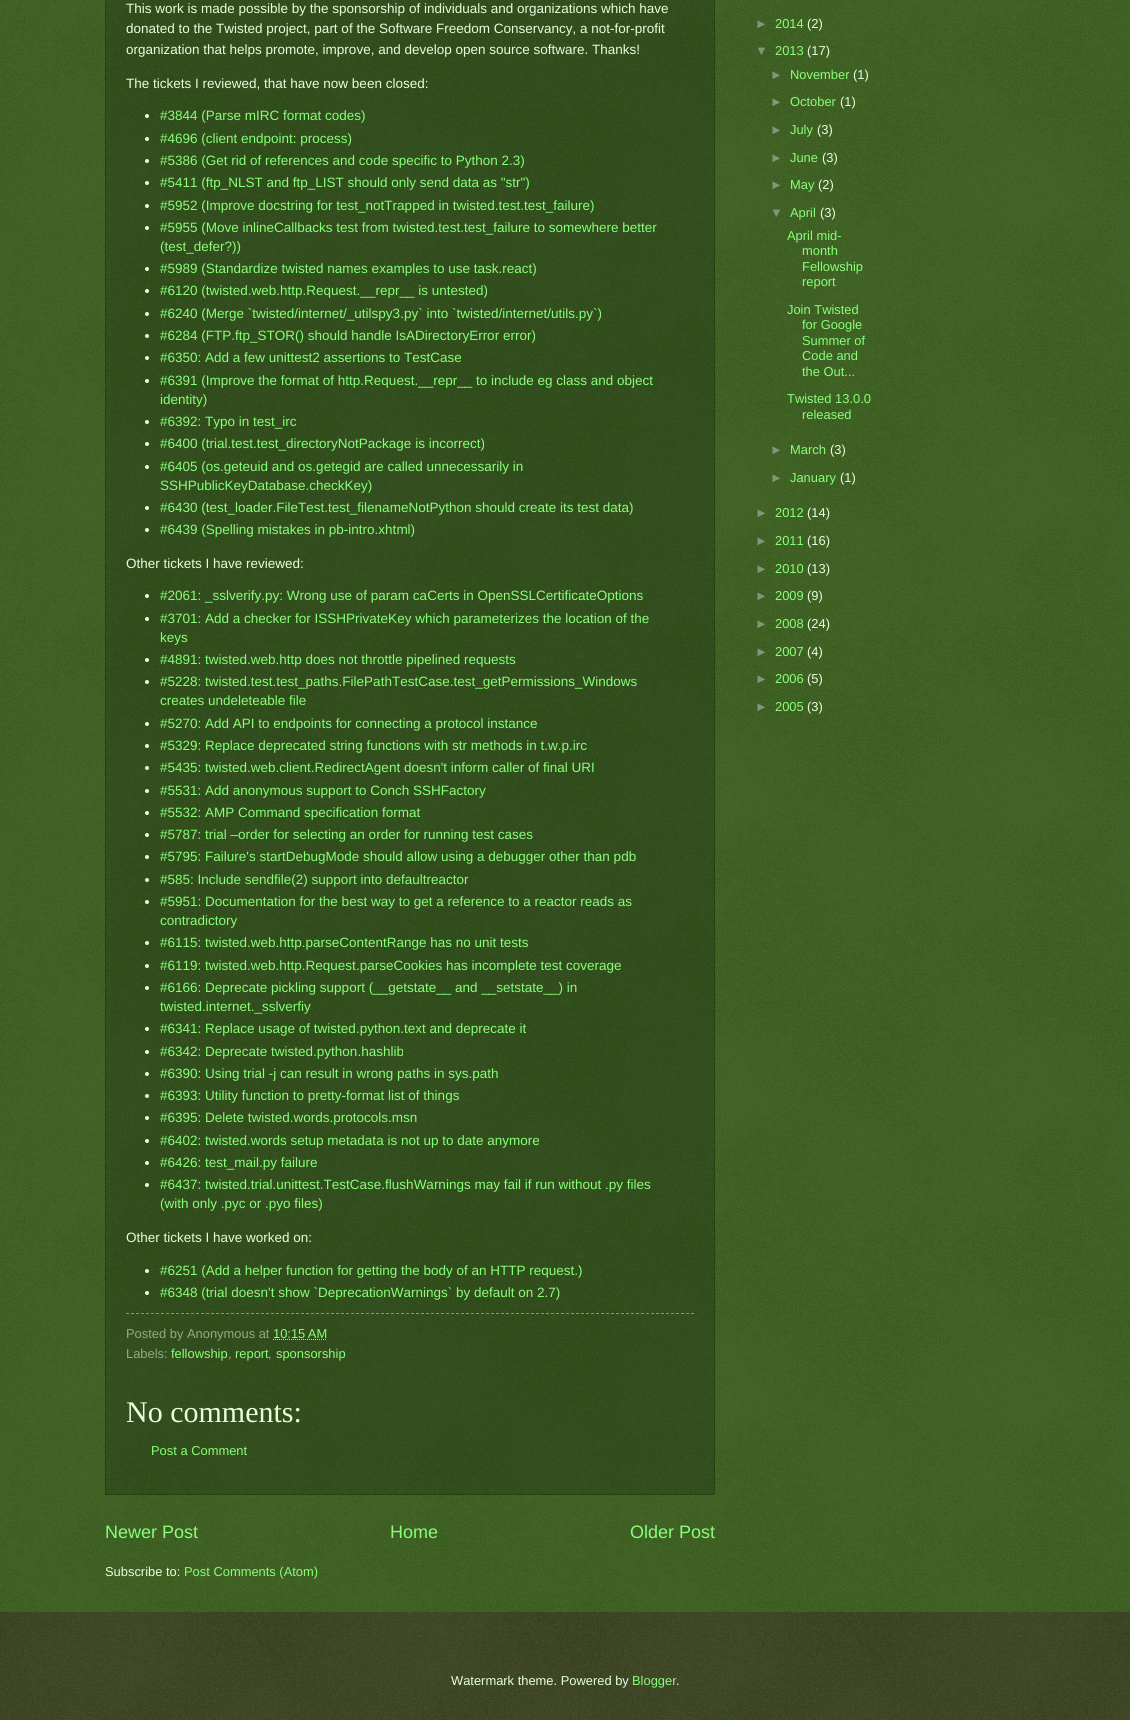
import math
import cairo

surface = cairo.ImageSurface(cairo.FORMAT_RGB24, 1130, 1720)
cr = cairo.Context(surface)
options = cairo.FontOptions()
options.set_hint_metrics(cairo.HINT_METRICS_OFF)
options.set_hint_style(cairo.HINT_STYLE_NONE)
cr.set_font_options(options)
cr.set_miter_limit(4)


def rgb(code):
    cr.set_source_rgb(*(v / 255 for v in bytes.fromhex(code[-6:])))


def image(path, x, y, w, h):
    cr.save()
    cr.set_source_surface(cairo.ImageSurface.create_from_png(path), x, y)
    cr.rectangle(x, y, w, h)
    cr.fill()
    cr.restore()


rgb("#1f4700")
cr.paint()
image("img/1.png", 0, 0, 1130, 1612)
cr.set_source_rgba(0, 0, 0, 0.2)
cr.rectangle(105, 0, 610, 1495)
cr.fill()
cr.new_path()
cr.move_to(714.5, -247)
cr.line_to(714.5, 1495)
rgb("#1a3511")
cr.set_line_width(1)
cr.set_dash([1, 1])
cr.stroke()
cr.new_path()
cr.move_to(105, 1494.5)
cr.line_to(715, 1494.5)
cr.stroke()
cr.new_path()
cr.move_to(105.5, -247)
cr.line_to(105.5, 1495)
cr.stroke()
rgb("#e5ffdd")
cr.arc(147, 116, 2, 0, 2 * math.pi)
cr.fill()
cr.arc(147, 139, 2, 0, 2 * math.pi)
cr.fill()
cr.arc(147, 161, 2, 0, 2 * math.pi)
cr.fill()
cr.arc(147, 183, 2, 0, 2 * math.pi)
cr.fill()
cr.arc(147, 206, 2, 0, 2 * math.pi)
cr.fill()
cr.arc(147, 228, 2, 0, 2 * math.pi)
cr.fill()
cr.arc(147, 269, 2, 0, 2 * math.pi)
cr.fill()
cr.arc(147, 291, 2, 0, 2 * math.pi)
cr.fill()
cr.arc(147, 314, 2, 0, 2 * math.pi)
cr.fill()
cr.arc(147, 336, 2, 0, 2 * math.pi)
cr.fill()
cr.arc(147, 358, 2, 0, 2 * math.pi)
cr.fill()
cr.arc(147, 381, 2, 0, 2 * math.pi)
cr.fill()
cr.arc(147, 422, 2, 0, 2 * math.pi)
cr.fill()
cr.arc(147, 444, 2, 0, 2 * math.pi)
cr.fill()
cr.arc(147, 467, 2, 0, 2 * math.pi)
cr.fill()
cr.arc(147, 508, 2, 0, 2 * math.pi)
cr.fill()
cr.arc(147, 530, 2, 0, 2 * math.pi)
cr.fill()
cr.arc(147, 596, 2, 0, 2 * math.pi)
cr.fill()
cr.arc(147, 619, 2, 0, 2 * math.pi)
cr.fill()
cr.arc(147, 660, 2, 0, 2 * math.pi)
cr.fill()
cr.arc(147, 682, 2, 0, 2 * math.pi)
cr.fill()
cr.arc(147, 724, 2, 0, 2 * math.pi)
cr.fill()
cr.arc(147, 746, 2, 0, 2 * math.pi)
cr.fill()
cr.arc(147, 768, 2, 0, 2 * math.pi)
cr.fill()
cr.arc(147, 791, 2, 0, 2 * math.pi)
cr.fill()
cr.arc(147, 813, 2, 0, 2 * math.pi)
cr.fill()
cr.arc(147, 835, 2, 0, 2 * math.pi)
cr.fill()
cr.arc(147, 857, 2, 0, 2 * math.pi)
cr.fill()
cr.arc(147, 880, 2, 0, 2 * math.pi)
cr.fill()
cr.arc(147, 902, 2, 0, 2 * math.pi)
cr.fill()
cr.arc(147, 943, 2, 0, 2 * math.pi)
cr.fill()
cr.arc(147, 966, 2, 0, 2 * math.pi)
cr.fill()
cr.arc(147, 988, 2, 0, 2 * math.pi)
cr.fill()
cr.arc(147, 1029, 2, 0, 2 * math.pi)
cr.fill()
cr.arc(147, 1052, 2, 0, 2 * math.pi)
cr.fill()
cr.arc(147, 1074, 2, 0, 2 * math.pi)
cr.fill()
cr.arc(147, 1096, 2, 0, 2 * math.pi)
cr.fill()
cr.arc(147, 1118, 2, 0, 2 * math.pi)
cr.fill()
cr.arc(147, 1141, 2, 0, 2 * math.pi)
cr.fill()
cr.arc(147, 1163, 2, 0, 2 * math.pi)
cr.fill()
cr.arc(147, 1185, 2, 0, 2 * math.pi)
cr.fill()
cr.arc(147, 1271, 2, 0, 2 * math.pi)
cr.fill()
cr.arc(147, 1293, 2, 0, 2 * math.pi)
cr.fill()
cr.new_path()
cr.move_to(126, 1313.5)
cr.line_to(694, 1313.5)
rgb("#7f9977")
cr.set_dash([3, 2])
cr.stroke()
cr.new_path()
cr.move_to(273, 1339.5)
cr.line_to(327, 1339.5)
rgb("#87ff77")
cr.set_dash([1, 1])
cr.stroke()
rgb("#1d2700")
cr.rectangle(0, 1612, 1130, 108)
cr.fill()
image("img/2.png", 0, 1612, 1130, 108)
cr.select_font_face("Liberation Sans")
cr.set_font_size(13.5)
rgb("#e5ffdd")
for x, y, s in [
    (126, 13, "This work is made possible by the sponsorship of individuals and organizations which have"),
    (126, 33, "donated to the Twisted project, part of the Software Freedom Conservancy, a not-for-profit"),
    (126, 54, "organization that helps promote, improve, and develop open source software. Thanks!"),
    (126, 88, "The tickets I reviewed, that have now been closed:"),
]:
    cr.move_to(x, y)
    cr.show_text(s)
rgb("#87ff77")
for x, y, s in [
    (160, 120, "#3844 (Parse mIRC format codes)"),
    (160, 143, "#4696 (client endpoint: process)"),
    (160, 165, "#5386 (Get rid of references and code specific to Python 2.3)"),
    (160, 187, "#5411 (ftp_NLST and ftp_LIST should only send data as \"str\")"),
    (160, 210, "#5952 (Improve docstring for test_notTrapped in twisted.test.test_failure)"),
    (160, 232, "#5955 (Move inlineCallbacks test from twisted.test.test_failure to somewhere better"),
    (160, 251, "(test_defer?))"),
    (160, 273, "#5989 (Standardize twisted names examples to use task.react)"),
    (160, 295, "#6120 (twisted.web.http.Request.__repr__ is untested)"),
    (160, 318, "#6240 (Merge `twisted/internet/_utilspy3.py` into `twisted/internet/utils.py`)"),
    (160, 340, "#6284 (FTP.ftp_STOR() should handle IsADirectoryError error)"),
    (160, 362, "#6350: Add a few unittest2 assertions to TestCase"),
    (160, 385, "#6391 (Improve the format of http.Request.__repr__ to include eg class and object"),
    (160, 404, "identity)"),
    (160, 426, "#6392: Typo in test_irc"),
    (160, 448, "#6400 (trial.test.test_directoryNotPackage is incorrect)"),
    (160, 471, "#6405 (os.geteuid and os.getegid are called unnecessarily in"),
    (160, 490, "SSHPublicKeyDatabase.checkKey)"),
    (160, 512, "#6430 (test_loader.FileTest.test_filenameNotPython should create its test data)"),
    (160, 534, "#6439 (Spelling mistakes in pb-intro.xhtml)"),
]:
    cr.move_to(x, y)
    cr.show_text(s)
rgb("#e5ffdd")
cr.move_to(126, 568)
cr.show_text("Other tickets I have reviewed:")
rgb("#87ff77")
for x, y, s in [
    (160, 600, "#2061: _sslverify.py: Wrong use of param caCerts in OpenSSLCertificateOptions"),
    (160, 623, "#3701: Add a checker for ISSHPrivateKey which parameterizes the location of the"),
    (160, 642, "keys"),
    (160, 664, "#4891: twisted.web.http does not throttle pipelined requests"),
    (160, 686, "#5228: twisted.test.test_paths.FilePathTestCase.test_getPermissions_Windows"),
    (160, 705, "creates undeleteable file"),
    (160, 728, "#5270: Add API to endpoints for connecting a protocol instance"),
    (160, 750, "#5329: Replace deprecated string functions with str methods in t.w.p.irc"),
    (160, 772, "#5435: twisted.web.client.RedirectAgent doesn't inform caller of final URI"),
    (160, 795, "#5531: Add anonymous support to Conch SSHFactory"),
    (160, 817, "#5532: AMP Command specification format"),
    (160, 839, "#5787: trial –order for selecting an order for running test cases"),
    (160, 861, "#5795: Failure's startDebugMode should allow using a debugger other than pdb"),
    (160, 884, "#585: Include sendfile(2) support into defaultreactor"),
    (160, 906, "#5951: Documentation for the best way to get a reference to a reactor reads as"),
    (160, 925, "contradictory"),
    (160, 947, "#6115: twisted.web.http.parseContentRange has no unit tests"),
    (160, 970, "#6119: twisted.web.http.Request.parseCookies has incomplete test coverage"),
    (160, 992, "#6166: Deprecate pickling support (__getstate__ and __setstate__) in"),
    (160, 1011, "twisted.internet._sslverfiy"),
    (160, 1033, "#6341: Replace usage of twisted.python.text and deprecate it"),
    (160, 1056, "#6342: Deprecate twisted.python.hashlib"),
    (160, 1078, "#6390: Using trial -j can result in wrong paths in sys.path"),
    (160, 1100, "#6393: Utility function to pretty-format list of things"),
    (160, 1122, "#6395: Delete twisted.words.protocols.msn"),
    (160, 1145, "#6402: twisted.words setup metadata is not up to date anymore"),
    (160, 1167, "#6426: test_mail.py failure"),
    (160, 1189, "#6437: twisted.trial.unittest.TestCase.flushWarnings may fail if run without .py files"),
    (160, 1208, "(with only .pyc or .pyo files)"),
]:
    cr.move_to(x, y)
    cr.show_text(s)
rgb("#e5ffdd")
cr.move_to(126, 1242)
cr.show_text("Other tickets I have worked on:")
rgb("#87ff77")
cr.move_to(160, 1275)
cr.show_text("#6251 (Add a helper function for getting the body of an HTTP request.)")
cr.move_to(160, 1297)
cr.show_text("#6348 (trial doesn't show `DeprecationWarnings` by default on 2.7)")
cr.set_font_size(12.9)
rgb("#90aa88")
cr.move_to(126, 1338)
cr.show_text("Posted by Anonymous at")
rgb("#87ff77")
cr.move_to(273, 1338)
cr.show_text("10:15 AM")
rgb("#90aa88")
cr.move_to(126, 1358)
cr.show_text("Labels:")
rgb("#87ff77")
cr.move_to(171, 1358)
cr.show_text("fellowship")
rgb("#90aa88")
cr.move_to(228, 1358)
cr.show_text(",")
rgb("#87ff77")
cr.move_to(235, 1358)
cr.show_text("report")
rgb("#90aa88")
cr.move_to(268, 1358)
cr.show_text(",")
rgb("#87ff77")
cr.move_to(276, 1358)
cr.show_text("sponsorship")
cr.select_font_face("Liberation Serif")
cr.set_font_size(30)
rgb("#e5ffdd")
cr.move_to(126, 1422)
cr.show_text("No comments:")
cr.select_font_face("Liberation Sans")
cr.set_font_size(12.9)
rgb("#87ff77")
cr.move_to(151, 1455)
cr.show_text("Post a Comment")
cr.set_font_size(18)
for x, y, s in [
    (105, 1538, "Newer Post"),
    (390, 1538, "Home"),
    (630, 1538, "Older Post"),
]:
    cr.move_to(x, y)
    cr.show_text(s)
cr.set_font_size(12.9)
rgb("#e5ffdd")
cr.move_to(105, 1576)
cr.show_text("Subscribe to:")
rgb("#87ff77")
cr.move_to(184, 1576)
cr.show_text("Post Comments (Atom)")
rgb("#7f9977")
cr.move_to(755, 28)
cr.show_text("►")
rgb("#87ff77")
cr.move_to(775, 28)
cr.show_text("2014")
rgb("#e5ffdd")
cr.move_to(807, 28)
cr.show_text("(2)")
rgb("#7f9977")
cr.move_to(755, 55)
cr.show_text("▼")
rgb("#87ff77")
cr.move_to(775, 55)
cr.show_text("2013")
rgb("#e5ffdd")
cr.move_to(807, 55)
cr.show_text("(17)")
rgb("#7f9977")
cr.move_to(770, 79)
cr.show_text("►")
rgb("#87ff77")
cr.move_to(790, 79)
cr.show_text("November")
rgb("#e5ffdd")
cr.move_to(853, 79)
cr.show_text("(1)")
rgb("#7f9977")
cr.move_to(770, 106)
cr.show_text("►")
rgb("#87ff77")
cr.move_to(790, 106)
cr.show_text("October")
rgb("#e5ffdd")
cr.move_to(840, 106)
cr.show_text("(1)")
rgb("#7f9977")
cr.move_to(770, 134)
cr.show_text("►")
rgb("#87ff77")
cr.move_to(790, 134)
cr.show_text("July")
rgb("#e5ffdd")
cr.move_to(817, 134)
cr.show_text("(3)")
rgb("#7f9977")
cr.move_to(770, 162)
cr.show_text("►")
rgb("#87ff77")
cr.move_to(790, 162)
cr.show_text("June")
rgb("#e5ffdd")
cr.move_to(822, 162)
cr.show_text("(3)")
rgb("#7f9977")
cr.move_to(770, 189)
cr.show_text("►")
rgb("#87ff77")
cr.move_to(790, 189)
cr.show_text("May")
rgb("#e5ffdd")
cr.move_to(818, 189)
cr.show_text("(2)")
rgb("#7f9977")
cr.move_to(770, 217)
cr.show_text("▼")
rgb("#87ff77")
cr.move_to(790, 217)
cr.show_text("April")
rgb("#e5ffdd")
cr.move_to(820, 217)
cr.show_text("(3)")
rgb("#87ff77")
for x, y, s in [
    (787, 240, "April mid-"),
    (802, 255, "month"),
    (802, 271, "Fellowship"),
    (802, 286, "report"),
    (787, 314, "Join Twisted"),
    (802, 329, "for Google"),
    (802, 345, "Summer of"),
    (802, 360, "Code and"),
    (802, 376, "the Out..."),
    (787, 403, "Twisted 13.0.0"),
    (802, 419, "released"),
]:
    cr.move_to(x, y)
    cr.show_text(s)
rgb("#7f9977")
cr.move_to(770, 454)
cr.show_text("►")
rgb("#87ff77")
cr.move_to(790, 454)
cr.show_text("March")
rgb("#e5ffdd")
cr.move_to(830, 454)
cr.show_text("(3)")
rgb("#7f9977")
cr.move_to(770, 482)
cr.show_text("►")
rgb("#87ff77")
cr.move_to(790, 482)
cr.show_text("January")
rgb("#e5ffdd")
cr.move_to(840, 482)
cr.show_text("(1)")
rgb("#7f9977")
cr.move_to(755, 517)
cr.show_text("►")
rgb("#87ff77")
cr.move_to(775, 517)
cr.show_text("2012")
rgb("#e5ffdd")
cr.move_to(807, 517)
cr.show_text("(14)")
rgb("#7f9977")
cr.move_to(755, 545)
cr.show_text("►")
rgb("#87ff77")
cr.move_to(775, 545)
cr.show_text("2011")
rgb("#e5ffdd")
cr.move_to(807, 545)
cr.show_text("(16)")
rgb("#7f9977")
cr.move_to(755, 573)
cr.show_text("►")
rgb("#87ff77")
cr.move_to(775, 573)
cr.show_text("2010")
rgb("#e5ffdd")
cr.move_to(807, 573)
cr.show_text("(13)")
rgb("#7f9977")
cr.move_to(755, 600)
cr.show_text("►")
rgb("#87ff77")
cr.move_to(775, 600)
cr.show_text("2009")
rgb("#e5ffdd")
cr.move_to(807, 600)
cr.show_text("(9)")
rgb("#7f9977")
cr.move_to(755, 628)
cr.show_text("►")
rgb("#87ff77")
cr.move_to(775, 628)
cr.show_text("2008")
rgb("#e5ffdd")
cr.move_to(807, 628)
cr.show_text("(24)")
rgb("#7f9977")
cr.move_to(755, 656)
cr.show_text("►")
rgb("#87ff77")
cr.move_to(775, 656)
cr.show_text("2007")
rgb("#e5ffdd")
cr.move_to(807, 656)
cr.show_text("(4)")
rgb("#7f9977")
cr.move_to(755, 683)
cr.show_text("►")
rgb("#87ff77")
cr.move_to(775, 683)
cr.show_text("2006")
rgb("#e5ffdd")
cr.move_to(807, 683)
cr.show_text("(5)")
rgb("#7f9977")
cr.move_to(755, 711)
cr.show_text("►")
rgb("#87ff77")
cr.move_to(775, 711)
cr.show_text("2005")
rgb("#e5ffdd")
cr.move_to(807, 711)
cr.show_text("(3)")
cr.move_to(451, 1685)
cr.show_text("Watermark theme. Powered by")
rgb("#87ff77")
cr.move_to(632, 1685)
cr.show_text("Blogger")
rgb("#e5ffdd")
cr.move_to(676, 1685)
cr.show_text(".")
surface.write_to_png("page.png")
